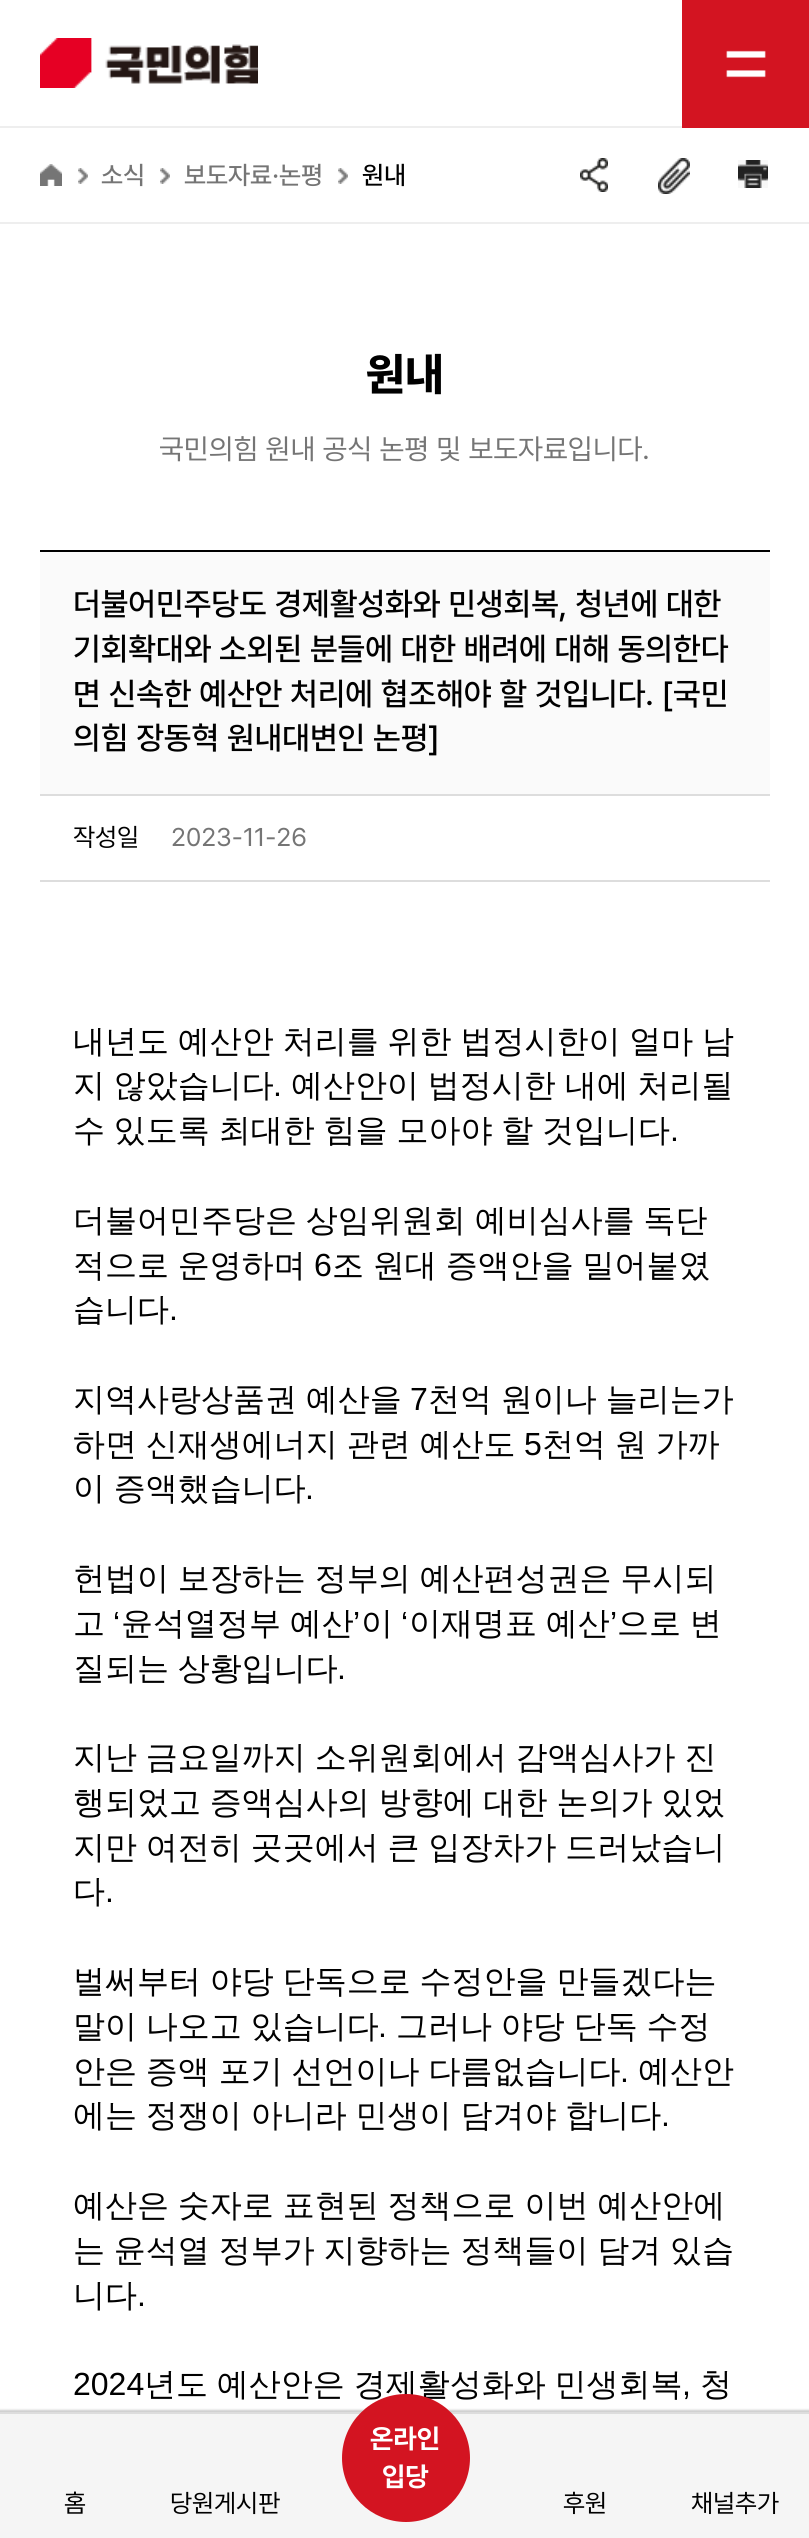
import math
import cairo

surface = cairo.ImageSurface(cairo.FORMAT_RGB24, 809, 2538)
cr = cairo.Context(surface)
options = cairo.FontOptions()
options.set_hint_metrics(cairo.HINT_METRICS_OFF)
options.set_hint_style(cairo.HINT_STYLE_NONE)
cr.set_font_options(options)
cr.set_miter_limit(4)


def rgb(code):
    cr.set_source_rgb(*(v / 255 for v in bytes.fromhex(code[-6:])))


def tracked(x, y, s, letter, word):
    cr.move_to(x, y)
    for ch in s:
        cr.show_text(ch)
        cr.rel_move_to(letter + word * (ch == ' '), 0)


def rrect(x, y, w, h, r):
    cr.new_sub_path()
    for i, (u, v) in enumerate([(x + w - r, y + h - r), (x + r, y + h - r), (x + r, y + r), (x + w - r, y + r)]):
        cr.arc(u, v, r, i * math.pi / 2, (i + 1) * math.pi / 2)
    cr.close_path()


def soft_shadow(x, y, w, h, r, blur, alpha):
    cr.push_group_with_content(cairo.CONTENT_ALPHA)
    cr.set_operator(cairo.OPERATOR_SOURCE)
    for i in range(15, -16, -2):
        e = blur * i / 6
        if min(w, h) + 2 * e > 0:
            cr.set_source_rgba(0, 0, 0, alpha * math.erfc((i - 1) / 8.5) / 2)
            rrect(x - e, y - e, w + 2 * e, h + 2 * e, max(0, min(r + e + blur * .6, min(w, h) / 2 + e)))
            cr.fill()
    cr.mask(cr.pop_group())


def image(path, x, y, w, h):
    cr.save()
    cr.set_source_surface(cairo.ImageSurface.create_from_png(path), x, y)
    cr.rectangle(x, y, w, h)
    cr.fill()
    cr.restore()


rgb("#ffffff")
cr.paint()
rgb("#eeeeee")
cr.rectangle(0, 126, 682, 2)
cr.fill()
image("img/1.png", 40, 38, 218, 50)
image("img/2.png", 682, 0, 127, 128)
cr.rectangle(0, 222, 809, 2)
cr.fill()
image("img/3.png", 40, 164, 22, 22)
image("img/4.png", 78, 168, 10, 16)
image("img/5.png", 160, 168, 10, 16)
image("img/4.png", 338, 168, 10, 16)
image("img/6.png", 580, 158, 28, 34)
image("img/7.png", 658, 158, 32, 36)
image("img/8.png", 738, 160, 30, 28)
for x, y, w, h, color in [
    (40, 550, 730, 2, "#000000"),
    (40, 552, 730, 242, "#fafafa"),
    (40, 794, 730, 2, "#dddddd"),
    (40, 880, 730, 2, "#dddddd"),
]:
    rgb(color)
    cr.rectangle(x, y, w, h)
    cr.fill()
rgb("#000000")
soft_shadow(-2, 2410, 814, 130, 0, 1, 0.2)
rgb("#f5f5f5")
cr.rectangle(0, 2414, 809, 124)
cr.fill()
rgb("#dddddd")
cr.rectangle(0, 2412, 809, 2)
cr.fill()
cr.select_font_face("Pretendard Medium")
cr.set_font_size(25.5)
rgb("#757575")
cr.move_to(101, 184)
cr.show_text("소식")
cr.move_to(184, 184)
cr.show_text("보도자료·논평")
rgb("#000000")
cr.move_to(362, 184)
cr.show_text("원내")
cr.select_font_face("Pretendard ExtraBold")
cr.set_font_size(45)
cr.move_to(366, 390)
cr.show_text("원내")
cr.select_font_face("Pretendard")
cr.set_font_size(28.75)
rgb("#757575")
cr.move_to(159, 459)
cr.show_text("국민의힘 원내 공식 논평 및 보도자료입니다.")
cr.select_font_face("Pretendard Medium")
cr.set_font_size(32)
rgb("#000000")
for x, y, s in [
    (73, 615, "더불어민주당도 경제활성화와 민생회복, 청년에 대한"),
    (73, 660, "기회확대와 소외된 분들에 대한 배려에 대해 동의한다"),
    (73, 705, "면 신속한 예산안 처리에 협조해야 할 것입니다. [국민"),
    (73, 749, "의힘 장동혁 원내대변인 논평]"),
]:
    cr.move_to(x, y)
    cr.show_text(s)
cr.select_font_face("Pretendard")
cr.set_font_size(25.5)
cr.move_to(73, 846)
cr.show_text("작성일")
rgb("#757575")
cr.move_to(171, 846)
cr.show_text("2023-11-26")
cr.select_font_face("WenQuanYi Zen Hei Medium")
cr.set_font_size(32)
rgb("#000000")
tracked(73, 1052, "내년도 예산안 처리를 위한 법정시한이 얼마 남", 0, -0.75)
tracked(73, 1096, "지 않았습니다", 0, -0.75)
cr.select_font_face("Liberation Sans")
cr.move_to(273, 1096)
cr.show_text(".")
cr.select_font_face("WenQuanYi Zen Hei Medium")
tracked(291, 1096, "예산안이 법정시한 내에 처리될", 0, -0.75)
tracked(73, 1141, "수 있도록 최대한 힘을 모아야 할 것입니다", 0, -0.75)
cr.select_font_face("Liberation Sans")
cr.move_to(670, 1141)
cr.show_text(".")
cr.select_font_face("WenQuanYi Zen Hei Medium")
tracked(73, 1231, "더불어민주당은 상임위원회 예비심사를 독단", 0, -0.75)
tracked(73, 1276, "적으로 운영하며", 0, -0.75)
cr.select_font_face("Liberation Sans")
cr.move_to(314, 1276)
cr.show_text("6")
cr.select_font_face("WenQuanYi Zen Hei Medium")
tracked(332, 1276, "조 원대 증액안을 밀어붙였", 0, -0.75)
cr.move_to(73, 1320)
cr.show_text("습니다")
cr.select_font_face("Liberation Sans")
cr.move_to(169, 1320)
cr.show_text(".")
cr.select_font_face("WenQuanYi Zen Hei Medium")
tracked(73, 1410, "지역사랑상품권 예산을", 0, -0.75)
cr.select_font_face("Liberation Sans")
cr.move_to(410, 1410)
cr.show_text("7")
cr.select_font_face("WenQuanYi Zen Hei Medium")
tracked(428, 1410, "천억 원이나 늘리는가", 0, -0.75)
tracked(73, 1455, "하면 신재생에너지 관련 예산도", 0, -0.75)
cr.select_font_face("Liberation Sans")
cr.move_to(524, 1455)
cr.show_text("5")
cr.select_font_face("WenQuanYi Zen Hei Medium")
tracked(542, 1455, "천억 원 가까", 0, -0.75)
tracked(73, 1499, "이 증액했습니다", 0, -0.75)
cr.select_font_face("Liberation Sans")
cr.move_to(305, 1499)
cr.show_text(".")
cr.select_font_face("WenQuanYi Zen Hei Medium")
tracked(73, 1589, "헌법이 보장하는 정부의 예산편성권은 무시되", 0, -0.75)
cr.move_to(73, 1634)
cr.show_text("고")
cr.select_font_face("Liberation Sans")
cr.move_to(113, 1634)
cr.show_text("‘")
cr.select_font_face("WenQuanYi Zen Hei Medium")
tracked(121, 1634, "윤석열정부 예산", 0, -0.75)
cr.select_font_face("Liberation Sans")
cr.move_to(353, 1634)
cr.show_text("’")
cr.select_font_face("WenQuanYi Zen Hei Medium")
cr.move_to(361, 1634)
cr.show_text("이")
cr.select_font_face("Liberation Sans")
cr.move_to(401, 1634)
cr.show_text("‘")
cr.select_font_face("WenQuanYi Zen Hei Medium")
tracked(409, 1634, "이재명표 예산", 0, -0.75)
cr.select_font_face("Liberation Sans")
cr.move_to(610, 1634)
cr.show_text("’")
cr.select_font_face("WenQuanYi Zen Hei Medium")
tracked(617, 1634, "으로 변", 0, -0.75)
tracked(73, 1679, "질되는 상황입니다", 0, -0.75)
cr.select_font_face("Liberation Sans")
cr.move_to(337, 1679)
cr.show_text(".")
cr.select_font_face("WenQuanYi Zen Hei Medium")
for x, y, s in [
    (73, 1768, "지난 금요일까지 소위원회에서 감액심사가 진"),
    (73, 1813, "행되었고 증액심사의 방향에 대한 논의가 있었"),
    (73, 1858, "지만 여전히 곳곳에서 큰 입장차가 드러났습니"),
]:
    tracked(x, y, s, 0, -0.75)
cr.move_to(73, 1902)
cr.show_text("다")
cr.select_font_face("Liberation Sans")
cr.move_to(105, 1902)
cr.show_text(".")
cr.select_font_face("WenQuanYi Zen Hei Medium")
tracked(73, 1992, "벌써부터 야당 단독으로 수정안을 만들겠다는", 0, -0.75)
tracked(73, 2037, "말이 나오고 있습니다", 0, -0.75)
cr.select_font_face("Liberation Sans")
cr.move_to(378, 2037)
cr.show_text(".")
cr.select_font_face("WenQuanYi Zen Hei Medium")
tracked(396, 2037, "그러나 야당 단독 수정", 0, -0.75)
tracked(73, 2082, "안은 증액 포기 선언이나 다름없습니다", 0, -0.75)
cr.select_font_face("Liberation Sans")
cr.move_to(620, 2082)
cr.show_text(".")
cr.select_font_face("WenQuanYi Zen Hei Medium")
cr.move_to(638, 2082)
cr.show_text("예산안")
tracked(73, 2126, "에는 정쟁이 아니라 민생이 담겨야 합니다", 0, -0.75)
cr.select_font_face("Liberation Sans")
cr.move_to(661, 2126)
cr.show_text(".")
cr.select_font_face("WenQuanYi Zen Hei Medium")
tracked(73, 2216, "예산은 숫자로 표현된 정책으로 이번 예산안에", 0, -0.75)
tracked(73, 2261, "는 윤석열 정부가 지향하는 정책들이 담겨 있습", 0, -0.75)
cr.move_to(73, 2306)
cr.show_text("니다")
cr.select_font_face("Liberation Sans")
cr.move_to(137, 2306)
cr.show_text(".")
cr.move_to(73, 2395)
cr.show_text("2024")
cr.select_font_face("WenQuanYi Zen Hei Medium")
tracked(144, 2395, "년도 예산안은 경제활성화와 민생회복", 0, -0.75)
cr.select_font_face("Liberation Sans")
cr.move_to(682, 2395)
cr.show_text(",")
cr.select_font_face("WenQuanYi Zen Hei Medium")
cr.move_to(700, 2395)
cr.show_text("청")
rgb("#d31421")
cr.new_path()
cr.arc(406, 2458, 64, 0, 2 * math.pi)
cr.fill()
cr.select_font_face("Pretendard", cairo.FONT_SLANT_NORMAL, cairo.FONT_WEIGHT_BOLD)
cr.set_font_size(27)
rgb("#ffffff")
cr.move_to(370, 2448)
cr.show_text("온라인")
cr.move_to(382, 2486)
cr.show_text("입당")
cr.select_font_face("Pretendard")
cr.set_font_size(25.5)
rgb("#000000")
for x, y, s in [
    (64, 2512, "홈"),
    (170, 2512, "당원게시판"),
    (563, 2512, "후원"),
    (691, 2512, "채널추가"),
]:
    cr.move_to(x, y)
    cr.show_text(s)
surface.write_to_png("page.png")
